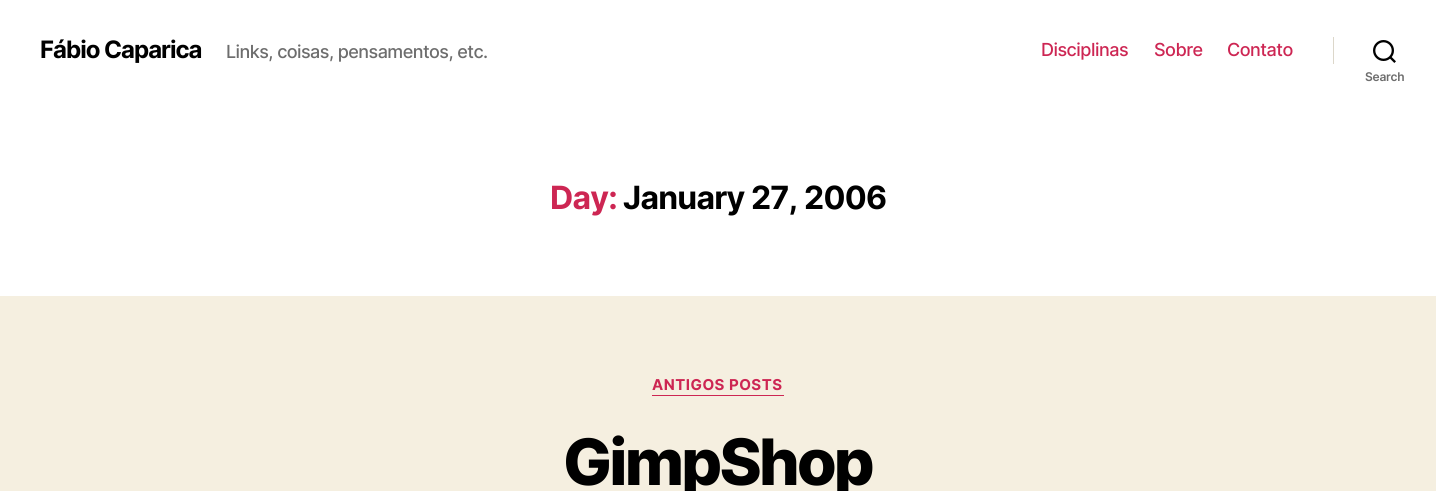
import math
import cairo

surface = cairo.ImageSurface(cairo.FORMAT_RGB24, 1436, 491)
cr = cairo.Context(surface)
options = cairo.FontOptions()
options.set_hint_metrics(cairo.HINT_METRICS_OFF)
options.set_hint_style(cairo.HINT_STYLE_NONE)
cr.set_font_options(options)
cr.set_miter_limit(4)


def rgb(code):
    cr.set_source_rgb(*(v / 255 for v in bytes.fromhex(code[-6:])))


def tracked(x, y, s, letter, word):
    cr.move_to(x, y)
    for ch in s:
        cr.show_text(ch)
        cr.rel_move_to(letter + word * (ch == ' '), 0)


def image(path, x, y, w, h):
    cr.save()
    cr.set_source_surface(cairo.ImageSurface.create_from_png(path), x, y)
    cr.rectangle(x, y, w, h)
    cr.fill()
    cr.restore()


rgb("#f5efe0")
cr.paint()
rgb("#ffffff")
cr.rectangle(0, 0, 1436, 296)
cr.fill()
rgb("#dcd7ca")
cr.rectangle(1333, 37, 1, 27)
cr.fill()
image("img/1.png", 1373, 40, 23, 23)
rgb("#cd2653")
cr.rectangle(652, 395, 132, 1)
cr.fill()
cr.select_font_face("Inter", cairo.FONT_SLANT_NORMAL, cairo.FONT_WEIGHT_BOLD)
cr.set_font_size(24)
rgb("#000000")
tracked(40, 58, "Fábio Caparica", -1, 0)
cr.select_font_face("Inter Medium")
cr.set_font_size(18)
rgb("#6d6d6d")
tracked(226, 58, "Links, coisas, pensamentos, etc.", -0.55, 0)
rgb("#cd2653")
for x, y, s in [
    (1041, 56, "Disciplinas"),
    (1154, 56, "Sobre"),
    (1227, 56, "Contato"),
]:
    tracked(x, y, s, -0.5, 0)
cr.select_font_face("Inter SemiBold")
cr.set_font_size(12)
rgb("#6d6d6d")
tracked(1365, 81, "Search", -0.25, 0)
cr.select_font_face("Inter", cairo.FONT_SLANT_NORMAL, cairo.FONT_WEIGHT_BOLD)
cr.set_font_size(32)
rgb("#cd2653")
tracked(550, 209, "Day:", -0.8, 0)
rgb("#000000")
tracked(623, 209, "January 27, 2006", -0.8, 0)
cr.set_font_size(15)
rgb("#cd2653")
tracked(652, 390, "ANTIGOS POSTS", 0.5, 0)
cr.select_font_face("Inter ExtraBold")
cr.set_font_size(64)
rgb("#000000")
tracked(563, 485, "GimpShop", -2.75, 0)
surface.write_to_png("page.png")
